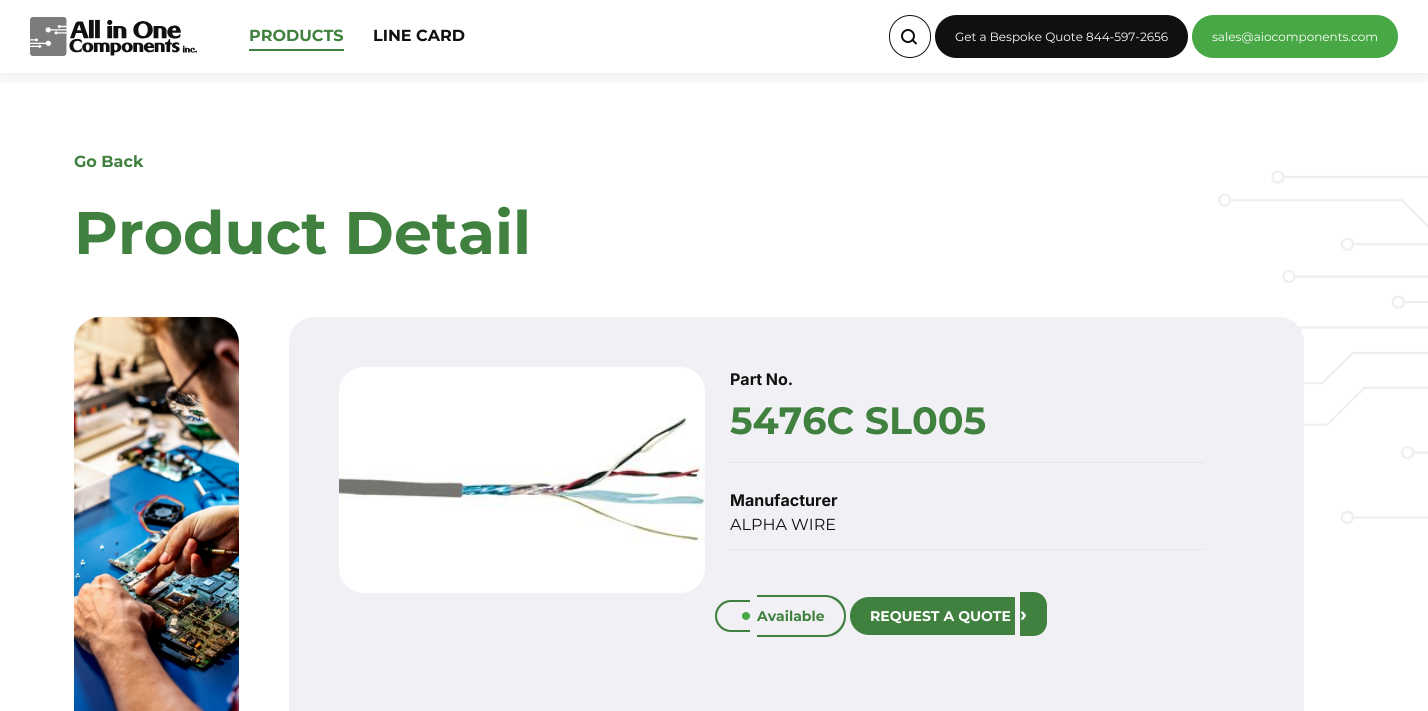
import math
import cairo

surface = cairo.ImageSurface(cairo.FORMAT_RGB24, 1428, 711)
cr = cairo.Context(surface)
options = cairo.FontOptions()
options.set_hint_metrics(cairo.HINT_METRICS_OFF)
options.set_hint_style(cairo.HINT_STYLE_NONE)
cr.set_font_options(options)
cr.set_miter_limit(4)


def rgb(code):
    cr.set_source_rgb(*(v / 255 for v in bytes.fromhex(code[-6:])))


def rrect(x, y, w, h, r):
    cr.new_sub_path()
    for i, (u, v) in enumerate([(x + w - r, y + h - r), (x + r, y + h - r), (x + r, y + r), (x + w - r, y + r)]):
        cr.arc(u, v, r, i * math.pi / 2, (i + 1) * math.pi / 2)
    cr.close_path()


def soft_shadow(x, y, w, h, r, blur, alpha):
    cr.push_group_with_content(cairo.CONTENT_ALPHA)
    cr.set_operator(cairo.OPERATOR_SOURCE)
    for i in range(15, -16, -2):
        e = blur * i / 6
        if min(w, h) + 2 * e > 0:
            cr.set_source_rgba(0, 0, 0, alpha * math.erfc((i - 1) / 8.5) / 2)
            rrect(x - e, y - e, w + 2 * e, h + 2 * e, max(0, min(r + e + blur * .6, min(w, h) / 2 + e)))
            cr.fill()
    cr.mask(cr.pop_group())


def image(path, x, y, w, h):
    cr.save()
    cr.set_source_surface(cairo.ImageSurface.create_from_png(path), x, y)
    cr.rectangle(x, y, w, h)
    cr.fill()
    cr.restore()


rgb("#ffffff")
cr.paint()
cr.save()
cr.rectangle(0, 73, 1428, 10)
cr.clip()
rgb("#000000")
soft_shadow(0, 3, 1428, 73, 0, 10, 0.08)
cr.restore()
image("img/1.png", 30, 17, 167, 39)
rgb("#40813f")
cr.rectangle(249, 49, 95, 2)
cr.fill()
rrect(889.5, 15.5, 41, 42, 20.5)
rgb("#101010")
cr.set_line_width(1)
cr.stroke()
cr.arc(908, 36, 6, 0, 2 * math.pi)
cr.set_line_width(2)
cr.stroke()
cr.new_path()
cr.move_to(916, 43.5)
cr.line_to(912.5, 40)
cr.set_line_cap(cairo.LINE_CAP_ROUND)
cr.set_line_join(cairo.LINE_JOIN_ROUND)
cr.stroke()
rrect(935, 15, 253, 43, 21.5)
cr.fill()
rgb("#47a845")
rrect(1192, 15, 206, 43, 21.5)
cr.fill()
image("img/2.png", 74, 317, 165, 394)
image("img/4.png", 1218, 170, 210, 354)
rgb("#f1f1f5")
rrect(289, 317, 1015, 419, 25)
cr.fill()
rgb("#ffffff")
rrect(339, 367, 366, 226, 25)
cr.fill()
image("img/3.png", 339, 417, 366, 126)
rgb("#e5e5e5")
cr.rectangle(730, 462, 474, 1)
cr.fill()
cr.rectangle(730, 549, 474, 1)
cr.fill()
rgb("#40813f")
cr.set_fill_rule(cairo.FILL_RULE_EVEN_ODD)
cr.new_path()
cr.move_to(731, 600)
cr.line_to(750, 600)
cr.line_to(750, 632)
cr.line_to(731, 632)
cr.curve_to(722, 632, 715, 625, 715, 616)
cr.curve_to(715, 607, 722, 600, 731, 600)
cr.close_path()
cr.move_to(731, 602)
cr.line_to(750, 602)
cr.line_to(750, 630)
cr.line_to(731, 630)
cr.curve_to(723.5, 630, 717, 623.5, 717, 616)
cr.curve_to(717, 608.5, 723.5, 602, 731, 602)
cr.close_path()
cr.fill()
cr.new_path()
cr.move_to(757, 595)
cr.line_to(825, 595)
cr.curve_to(837, 595, 846, 604, 846, 616)
cr.curve_to(846, 628, 837, 637, 825, 637)
cr.line_to(757, 637)
cr.close_path()
cr.move_to(757, 597)
cr.line_to(825, 597)
cr.curve_to(835, 597, 844, 606, 844, 616)
cr.curve_to(844, 626, 835, 635, 825, 635)
cr.line_to(757, 635)
cr.close_path()
cr.fill()
rgb("#47a845")
cr.arc(746, 616, 4, 0, 2 * math.pi)
cr.fill()
rgb("#40813f")
cr.new_path()
cr.move_to(869, 597)
cr.line_to(1015, 597)
cr.line_to(1015, 635)
cr.line_to(869, 635)
cr.curve_to(858.5, 635, 850, 626.5, 850, 616)
cr.curve_to(850, 605.5, 858.5, 597, 869, 597)
cr.close_path()
cr.fill()
cr.new_path()
cr.move_to(1020, 592)
cr.line_to(1033.5, 592)
cr.curve_to(1041, 592, 1047, 598, 1047, 605.5)
cr.line_to(1047, 622.5)
cr.curve_to(1047, 630, 1041, 636, 1033.5, 636)
cr.line_to(1020, 636)
cr.close_path()
cr.fill()
cr.select_font_face("Montserrat", cairo.FONT_SLANT_NORMAL, cairo.FONT_WEIGHT_BOLD)
cr.set_font_size(16)
cr.move_to(249, 41)
cr.show_text("PRODUCTS")
rgb("#101010")
cr.move_to(373, 41)
cr.show_text("LINE CARD")
cr.select_font_face("Montserrat")
cr.set_font_size(12)
rgb("#ffffff")
cr.move_to(955, 41)
cr.show_text("Get a Bespoke Quote 844-597-2656")
cr.move_to(1212, 41)
cr.show_text("sales@aiocomponents.com")
cr.select_font_face("Montserrat", cairo.FONT_SLANT_NORMAL, cairo.FONT_WEIGHT_BOLD)
cr.set_font_size(16)
rgb("#40813f")
cr.move_to(74, 167)
cr.show_text("Go Back")
cr.set_font_size(60)
cr.move_to(74, 254)
cr.show_text("Product Detail")
cr.select_font_face("Inter", cairo.FONT_SLANT_NORMAL, cairo.FONT_WEIGHT_BOLD)
cr.set_font_size(16)
rgb("#101010")
cr.move_to(730, 385)
cr.show_text("Part No.")
cr.select_font_face("Montserrat", cairo.FONT_SLANT_NORMAL, cairo.FONT_WEIGHT_BOLD)
cr.set_font_size(38)
rgb("#40813f")
cr.move_to(730, 434)
cr.show_text("5476C SL005")
cr.select_font_face("Inter", cairo.FONT_SLANT_NORMAL, cairo.FONT_WEIGHT_BOLD)
cr.set_font_size(16)
rgb("#101010")
cr.move_to(730, 506)
cr.show_text("Manufacturer")
cr.select_font_face("Montserrat")
cr.move_to(730, 530)
cr.show_text("ALPHA WIRE")
cr.select_font_face("Montserrat", cairo.FONT_SLANT_NORMAL, cairo.FONT_WEIGHT_BOLD)
cr.set_font_size(14)
rgb("#40813f")
cr.move_to(757, 621)
cr.show_text("Available")
rgb("#ffffff")
cr.move_to(870, 621)
cr.show_text("REQUEST A QUOTE")
cr.set_font_size(20)
cr.move_to(1020, 621)
cr.show_text("›")
surface.write_to_png("page.png")
